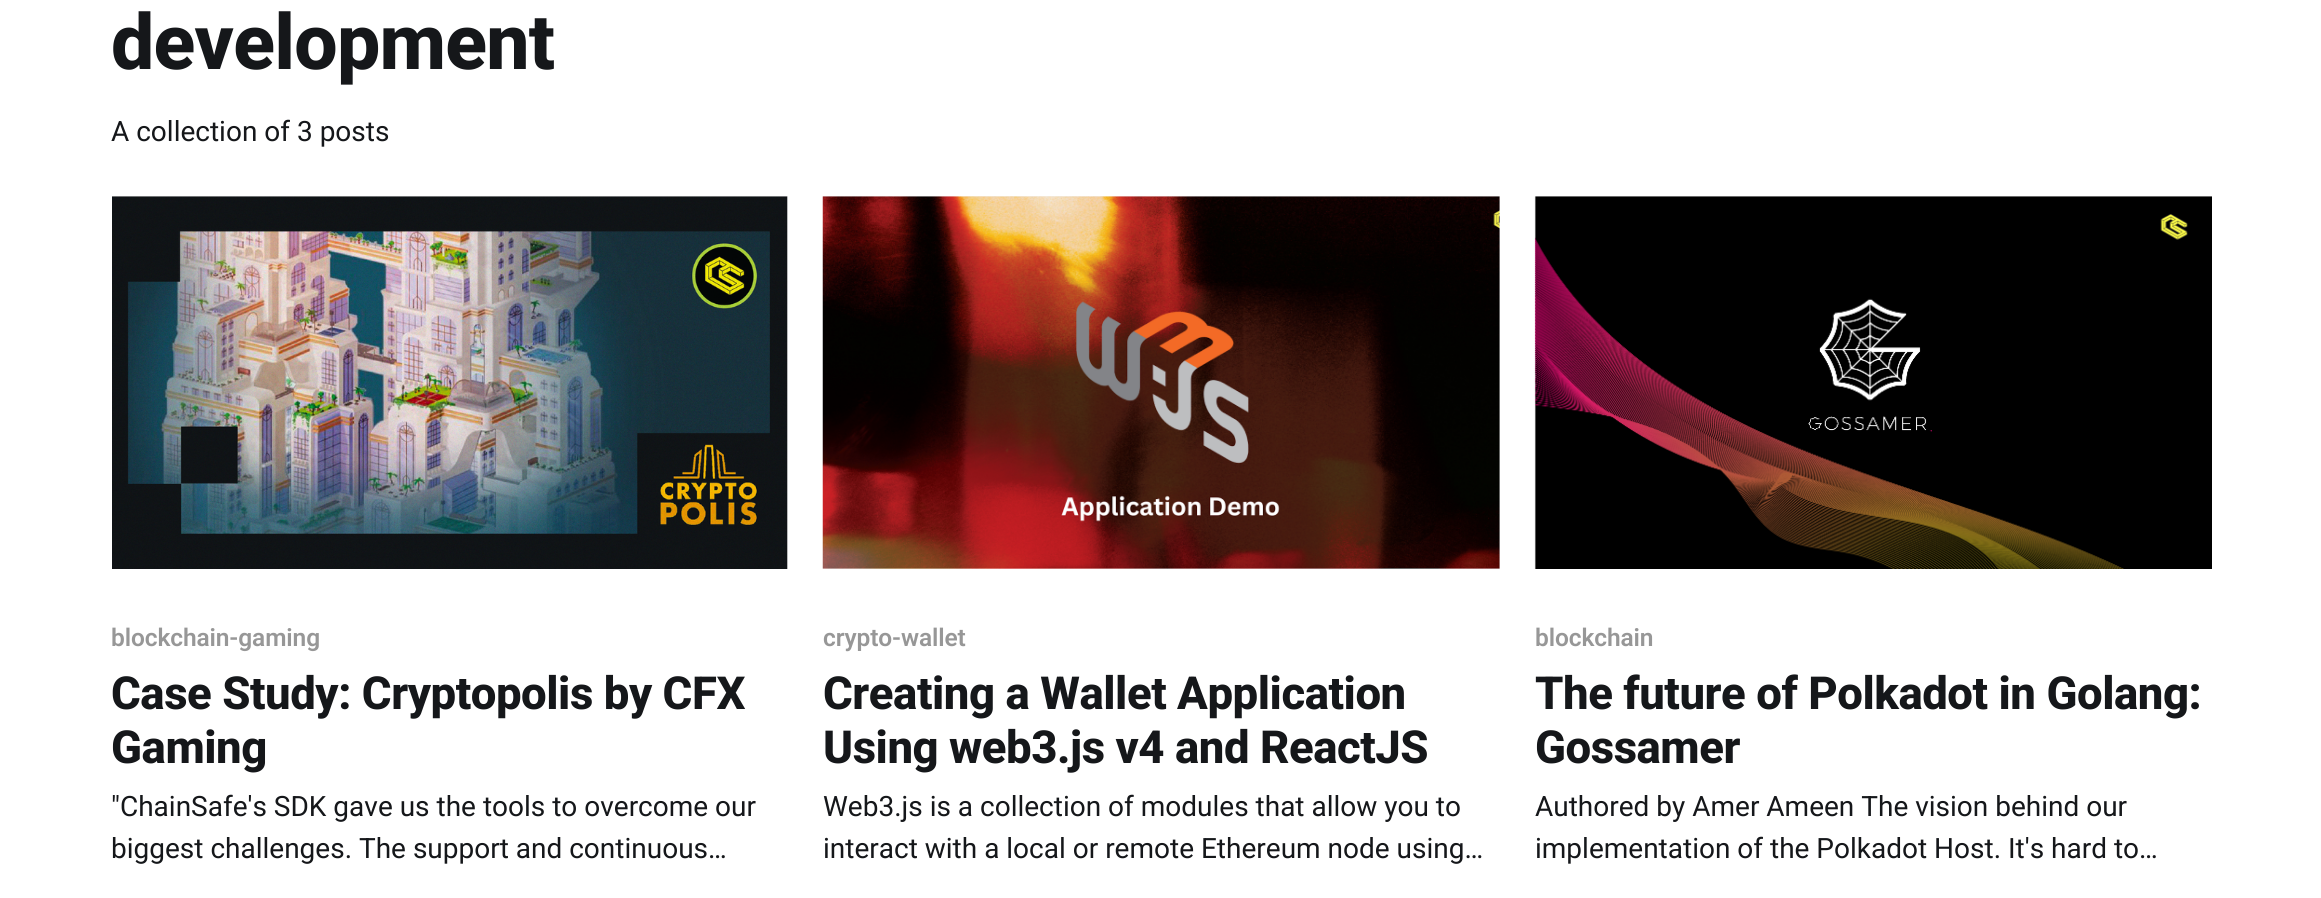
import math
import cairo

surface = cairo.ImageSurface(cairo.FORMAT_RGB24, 2321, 898)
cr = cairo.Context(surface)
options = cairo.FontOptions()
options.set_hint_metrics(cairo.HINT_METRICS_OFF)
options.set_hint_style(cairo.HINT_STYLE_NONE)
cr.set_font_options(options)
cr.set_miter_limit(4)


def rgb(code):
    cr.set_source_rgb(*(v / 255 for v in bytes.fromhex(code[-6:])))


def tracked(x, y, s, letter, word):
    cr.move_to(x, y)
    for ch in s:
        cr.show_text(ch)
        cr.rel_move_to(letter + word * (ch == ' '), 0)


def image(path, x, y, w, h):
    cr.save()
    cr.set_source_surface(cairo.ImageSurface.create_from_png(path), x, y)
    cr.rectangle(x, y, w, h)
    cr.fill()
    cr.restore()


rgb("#ffffff")
cr.paint()
rgb("#f1f1f1")
cr.rectangle(112, 196, 676, 373)
cr.fill()
image("img/1.png", 112, 196, 676, 373)
cr.rectangle(823, 196, 677, 373)
cr.fill()
image("img/2.png", 822, 196, 678, 373)
cr.rectangle(1535, 196, 677, 373)
cr.fill()
image("img/3.png", 1534, 196, 678, 373)
cr.select_font_face("Roboto ExtraBold")
cr.set_font_size(77)
rgb("#15171a")
tracked(111, 69, "development", -0.75, 0)
cr.select_font_face("Roboto")
cr.set_font_size(28)
cr.move_to(111, 141)
cr.show_text("A collection of 3 posts")
cr.select_font_face("Roboto SemiBold")
cr.set_font_size(24.5)
rgb("#979797")
tracked(111, 646, "blockchain-gaming", -0.1, 0)
cr.select_font_face("Roboto ExtraBold")
cr.set_font_size(45.5)
rgb("#15171a")
tracked(111, 709, "Case Study: Cryptopolis by CFX", -0.45, 0)
tracked(111, 763, "Gaming", -0.45, 0)
cr.select_font_face("Roboto")
cr.set_font_size(28)
cr.move_to(111, 816)
cr.show_text("\"ChainSafe's SDK gave us the tools to overcome our")
cr.move_to(111, 858)
cr.show_text("biggest challenges. The support and continuous…")
cr.select_font_face("Roboto SemiBold")
cr.set_font_size(24.5)
rgb("#979797")
tracked(823, 646, "crypto-wallet", -0.1, 0)
cr.select_font_face("Roboto ExtraBold")
cr.set_font_size(45.5)
rgb("#15171a")
tracked(823, 709, "Creating a Wallet Application", -0.45, 0)
tracked(823, 763, "Using web3.js v4 and ReactJS", -0.45, 0)
cr.select_font_face("Roboto")
cr.set_font_size(28)
cr.move_to(823, 816)
cr.show_text("Web3.js is a collection of modules that allow you to")
cr.move_to(823, 858)
cr.show_text("interact with a local or remote Ethereum node using…")
cr.select_font_face("Roboto SemiBold")
cr.set_font_size(24.5)
rgb("#979797")
tracked(1535, 646, "blockchain", -0.1, 0)
cr.select_font_face("Roboto ExtraBold")
cr.set_font_size(45.5)
rgb("#15171a")
tracked(1535, 709, "The future of Polkadot in Golang:", -0.45, 0)
tracked(1535, 763, "Gossamer", -0.45, 0)
cr.select_font_face("Roboto")
cr.set_font_size(28)
cr.move_to(1535, 816)
cr.show_text("Authored by Amer Ameen The vision behind our")
cr.move_to(1535, 858)
cr.show_text("implementation of the Polkadot Host. It's hard to…")
surface.write_to_png("page.png")
